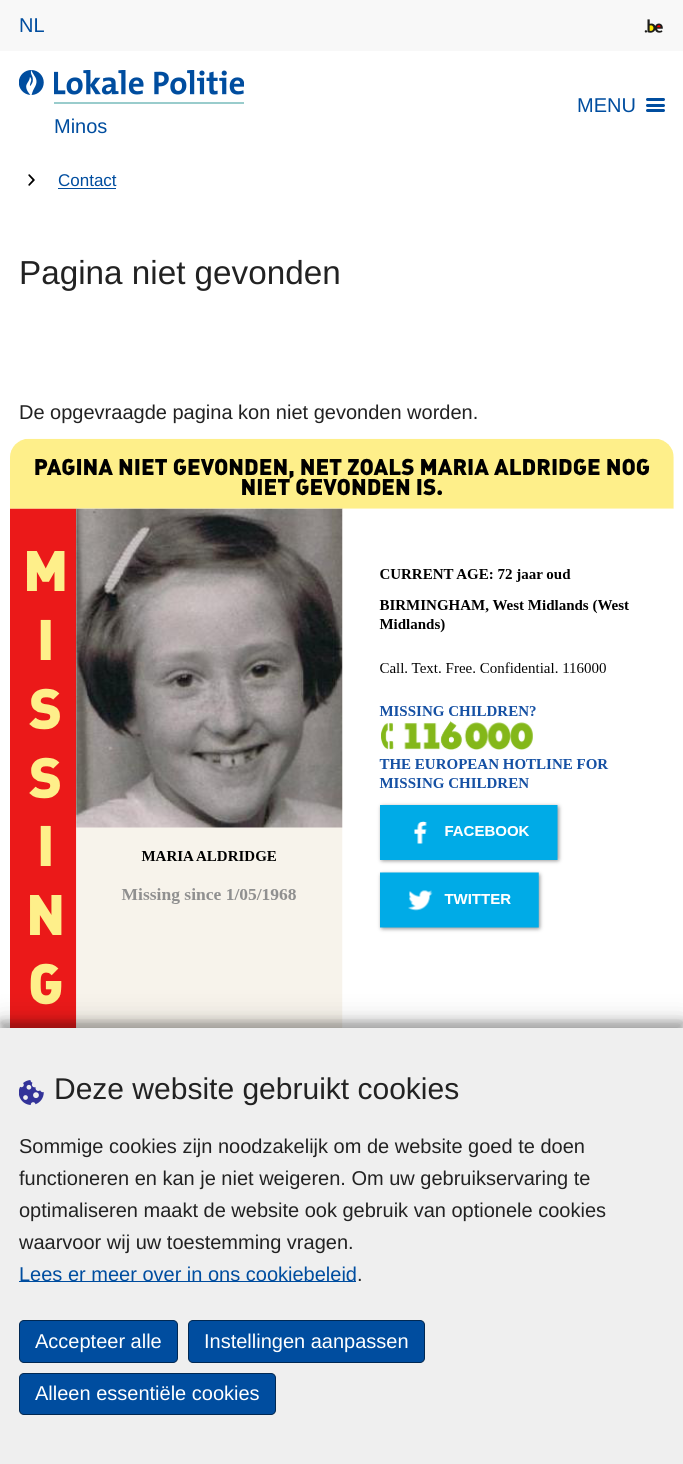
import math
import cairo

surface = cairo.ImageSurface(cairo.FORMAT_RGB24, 683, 1464)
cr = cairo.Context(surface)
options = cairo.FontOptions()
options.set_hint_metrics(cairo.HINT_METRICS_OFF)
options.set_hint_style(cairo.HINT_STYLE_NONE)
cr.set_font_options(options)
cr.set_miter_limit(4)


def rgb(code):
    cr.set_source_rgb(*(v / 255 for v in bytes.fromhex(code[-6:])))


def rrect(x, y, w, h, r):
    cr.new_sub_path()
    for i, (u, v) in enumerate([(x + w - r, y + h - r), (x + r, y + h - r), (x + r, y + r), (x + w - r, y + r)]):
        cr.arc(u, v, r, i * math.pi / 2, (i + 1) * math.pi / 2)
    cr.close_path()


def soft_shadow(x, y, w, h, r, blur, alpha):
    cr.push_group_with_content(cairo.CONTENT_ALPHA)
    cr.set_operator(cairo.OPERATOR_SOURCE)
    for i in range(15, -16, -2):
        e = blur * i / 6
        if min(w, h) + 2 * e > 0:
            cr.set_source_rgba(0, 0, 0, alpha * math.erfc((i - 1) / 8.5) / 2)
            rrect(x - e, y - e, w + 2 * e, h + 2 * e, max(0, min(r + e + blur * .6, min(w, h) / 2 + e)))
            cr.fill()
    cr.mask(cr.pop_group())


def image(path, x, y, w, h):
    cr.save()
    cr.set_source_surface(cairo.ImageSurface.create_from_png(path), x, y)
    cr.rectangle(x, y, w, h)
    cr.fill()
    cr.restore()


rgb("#ffffff")
cr.paint()
rgb("#f8f8f8")
cr.rectangle(0, 0, 683, 51)
cr.fill()
image("img/1.png", 644, 19, 19, 14)
rgb("#004d9f")
rrect(646, 104, 19, 3, 1.5)
cr.fill()
rrect(646, 98, 19, 3, 1.5)
cr.fill()
rrect(646, 109, 19, 3, 1.5)
cr.fill()
image("img/2.png", 19, 70, 25, 25)
image("img/3.png", 54, 70, 190, 34)
image("img/4.png", 28, 174, 7, 12)
cr.rectangle(58, 188, 58, 1)
cr.fill()
image("img/5.png", 10, 438, 664, 590)
rgb("#000000")
soft_shadow(0, 1021, 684, 438, 0, 4, 0.23)
soft_shadow(0, 1021, 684, 438, 0, 12.5, 0.19)
rgb("#efefef")
cr.rectangle(0, 1028, 683, 436)
cr.fill()
image("img/6.png", 19, 1080, 25, 25)
rgb("#004d9f")
cr.rectangle(19, 1281, 337, 1)
cr.fill()
rrect(19.5, 1320.5, 158, 42, 4.5)
cr.fill_preserve()
rgb("#002853")
cr.set_line_width(1)
cr.stroke()
rgb("#004d9f")
rrect(188.5, 1320.5, 236, 42, 4.5)
cr.fill_preserve()
rgb("#002853")
cr.stroke()
rgb("#004d9f")
rrect(19.5, 1373.5, 256, 41, 4.5)
cr.fill_preserve()
rgb("#002853")
cr.stroke()
cr.select_font_face("Liberation Sans")
cr.set_font_size(20)
rgb("#004d9f")
for x, y, s in [
    (19, 32, "NL"),
    (577, 112, "MENU"),
    (54, 133, "Minos"),
]:
    cr.move_to(x, y)
    cr.show_text(s)
cr.set_font_size(17)
cr.move_to(58, 186)
cr.show_text("Contact")
cr.set_font_size(33.25)
rgb("#222222")
cr.move_to(19, 284)
cr.show_text("Pagina niet gevonden")
cr.set_font_size(20)
cr.move_to(19, 419)
cr.show_text("De opgevraagde pagina kon niet gevonden worden.")
cr.set_font_size(30)
cr.move_to(54, 1099)
cr.show_text("Deze website gebruikt cookies")
cr.set_font_size(20)
for x, y, s in [
    (19, 1153, "Sommige cookies zijn noodzakelijk om de website goed te doen"),
    (19, 1185, "functioneren en kan je niet weigeren. Om uw gebruikservaring te"),
    (19, 1217, "optimaliseren maakt de website ook gebruik van optionele cookies"),
    (19, 1249, "waarvoor wij uw toestemming vragen."),
]:
    cr.move_to(x, y)
    cr.show_text(s)
rgb("#004d9f")
cr.move_to(19, 1281)
cr.show_text("Lees er meer over in ons cookiebeleid")
rgb("#222222")
cr.move_to(357, 1281)
cr.show_text(".")
rgb("#ffffff")
for x, y, s in [
    (35, 1348, "Accepteer alle"),
    (204, 1348, "Instellingen aanpassen"),
    (35, 1400, "Alleen essentiële cookies"),
]:
    cr.move_to(x, y)
    cr.show_text(s)
surface.write_to_png("page.png")
